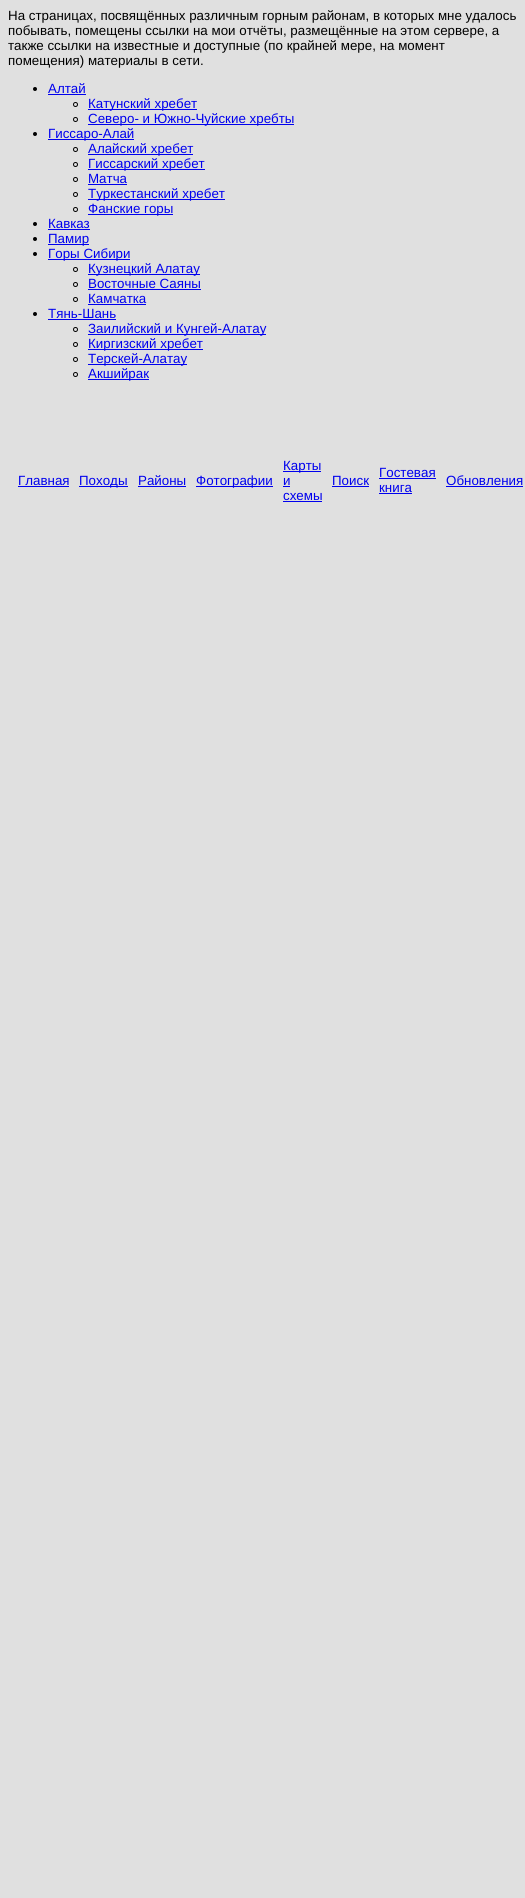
import math
import cairo

surface = cairo.ImageSurface(cairo.FORMAT_RGB24, 525, 1898)
cr = cairo.Context(surface)
options = cairo.FontOptions()
options.set_hint_metrics(cairo.HINT_METRICS_OFF)
options.set_hint_style(cairo.HINT_STYLE_NONE)
cr.set_font_options(options)
cr.set_miter_limit(4)


def rgb(code):
    cr.set_source_rgb(*(v / 255 for v in bytes.fromhex(code[-6:])))


rgb("#e0e0e0")
cr.paint()
rgb("#000000")
cr.arc(35, 89, 2, 0, 2 * math.pi)
cr.fill()
rgb("#0000ee")
cr.rectangle(48, 94, 38, 1)
cr.fill()
cr.arc(75.5, 104.5, 2, 0, 2 * math.pi)
rgb("#000000")
cr.set_line_width(1)
cr.stroke()
rgb("#0000ee")
cr.rectangle(88, 109, 109, 1)
cr.fill()
cr.arc(75.5, 119.5, 2, 0, 2 * math.pi)
rgb("#000000")
cr.stroke()
rgb("#0000ee")
cr.rectangle(88, 124, 206, 1)
cr.fill()
rgb("#000000")
cr.arc(35, 134, 2, 0, 2 * math.pi)
cr.fill()
rgb("#0000ee")
cr.rectangle(48, 139, 86, 1)
cr.fill()
cr.arc(75.5, 149.5, 2, 0, 2 * math.pi)
rgb("#000000")
cr.stroke()
rgb("#0000ee")
cr.rectangle(88, 154, 105, 1)
cr.fill()
cr.arc(75.5, 164.5, 2, 0, 2 * math.pi)
rgb("#000000")
cr.stroke()
rgb("#0000ee")
cr.rectangle(88, 169, 117, 1)
cr.fill()
cr.arc(75.5, 179.5, 2, 0, 2 * math.pi)
rgb("#000000")
cr.stroke()
rgb("#0000ee")
cr.rectangle(88, 184, 39, 1)
cr.fill()
cr.arc(75.5, 194.5, 2, 0, 2 * math.pi)
rgb("#000000")
cr.stroke()
rgb("#0000ee")
cr.rectangle(88, 199, 137, 1)
cr.fill()
cr.arc(75.5, 209.5, 2, 0, 2 * math.pi)
rgb("#000000")
cr.stroke()
rgb("#0000ee")
cr.rectangle(88, 214, 85, 1)
cr.fill()
rgb("#000000")
cr.arc(35, 224, 2, 0, 2 * math.pi)
cr.fill()
rgb("#0000ee")
cr.rectangle(48, 229, 42, 1)
cr.fill()
rgb("#000000")
cr.arc(35, 239, 2, 0, 2 * math.pi)
cr.fill()
rgb("#0000ee")
cr.rectangle(48, 244, 41, 1)
cr.fill()
rgb("#000000")
cr.arc(35, 254, 2, 0, 2 * math.pi)
cr.fill()
rgb("#0000ee")
cr.rectangle(48, 259, 82, 1)
cr.fill()
cr.arc(75.5, 269.5, 2, 0, 2 * math.pi)
rgb("#000000")
cr.stroke()
rgb("#0000ee")
cr.rectangle(88, 274, 112, 1)
cr.fill()
cr.arc(75.5, 284.5, 2, 0, 2 * math.pi)
rgb("#000000")
cr.stroke()
rgb("#0000ee")
cr.rectangle(88, 289, 113, 1)
cr.fill()
cr.arc(75.5, 299.5, 2, 0, 2 * math.pi)
rgb("#000000")
cr.stroke()
rgb("#0000ee")
cr.rectangle(88, 304, 58, 1)
cr.fill()
rgb("#000000")
cr.arc(35, 314, 2, 0, 2 * math.pi)
cr.fill()
rgb("#0000ee")
cr.rectangle(48, 319, 68, 1)
cr.fill()
cr.arc(75.5, 329.5, 2, 0, 2 * math.pi)
rgb("#000000")
cr.stroke()
rgb("#0000ee")
cr.rectangle(88, 334, 178, 1)
cr.fill()
cr.arc(75.5, 344.5, 2, 0, 2 * math.pi)
rgb("#000000")
cr.stroke()
rgb("#0000ee")
cr.rectangle(88, 349, 115, 1)
cr.fill()
cr.arc(75.5, 359.5, 2, 0, 2 * math.pi)
rgb("#000000")
cr.stroke()
rgb("#0000ee")
cr.rectangle(88, 364, 99, 1)
cr.fill()
cr.arc(75.5, 374.5, 2, 0, 2 * math.pi)
rgb("#000000")
cr.stroke()
for x, y, w, h, color in [
    (88, 379, 61, 1, "#0000ee"),
    (18, 486, 51, 1, "#0000ee"),
    (79, 486, 49, 1, "#0000ee"),
    (138, 486, 48, 1, "#0000ee"),
    (196, 486, 77, 1, "#0000ee"),
    (283, 471, 38, 1, "#0000ee"),
    (283, 486, 7, 1, "#0000ee"),
    (283, 501, 39, 1, "#0000ee"),
    (332, 486, 37, 1, "#0000ee"),
    (379, 478, 57, 1, "#0000ee"),
    (379, 493, 33, 1, "#0000ee"),
    (446, 486, 77, 1, "#0000ee"),
]:
    rgb(color)
    cr.rectangle(x, y, w, h)
    cr.fill()
cr.select_font_face("Liberation Sans")
cr.set_font_size(13.35)
rgb("#000000")
for x, y, s in [
    (8, 20, "На страницах, посвящённых различным горным районам, в которых мне удалось"),
    (8, 35, "побывать, помещены ссылки на мои отчёты, размещённые на этом сервере, а"),
    (8, 50, "также ссылки на известные и доступные (по крайней мере, на момент"),
    (8, 65, "помещения) материалы в сети."),
]:
    cr.move_to(x, y)
    cr.show_text(s)
rgb("#0000ee")
for x, y, s in [
    (48, 93, "Алтай"),
    (88, 108, "Катунский хребет"),
    (88, 123, "Северо- и Южно-Чуйские хребты"),
    (48, 138, "Гиссаро-Алай"),
    (88, 153, "Алайский хребет"),
    (88, 168, "Гиссарский хребет"),
    (88, 183, "Матча"),
    (88, 198, "Туркестанский хребет"),
    (88, 213, "Фанские горы"),
    (48, 228, "Кавказ"),
    (48, 243, "Памир"),
    (48, 258, "Горы Сибири"),
    (88, 273, "Кузнецкий Алатау"),
    (88, 288, "Восточные Саяны"),
    (88, 303, "Камчатка"),
    (48, 318, "Тянь-Шань"),
    (88, 333, "Заилийский и Кунгей-Алатау"),
    (88, 348, "Киргизский хребет"),
    (88, 363, "Терскей-Алатау"),
    (88, 378, "Акшийрак"),
    (18, 485, "Главная"),
    (79, 485, "Походы"),
    (138, 485, "Районы"),
    (196, 485, "Фотографии"),
    (283, 470, "Карты"),
    (283, 485, "и"),
    (283, 500, "схемы"),
    (332, 485, "Поиск"),
    (379, 477, "Гостевая"),
    (379, 492, "книга"),
    (446, 485, "Обновления"),
]:
    cr.move_to(x, y)
    cr.show_text(s)
surface.write_to_png("page.png")
